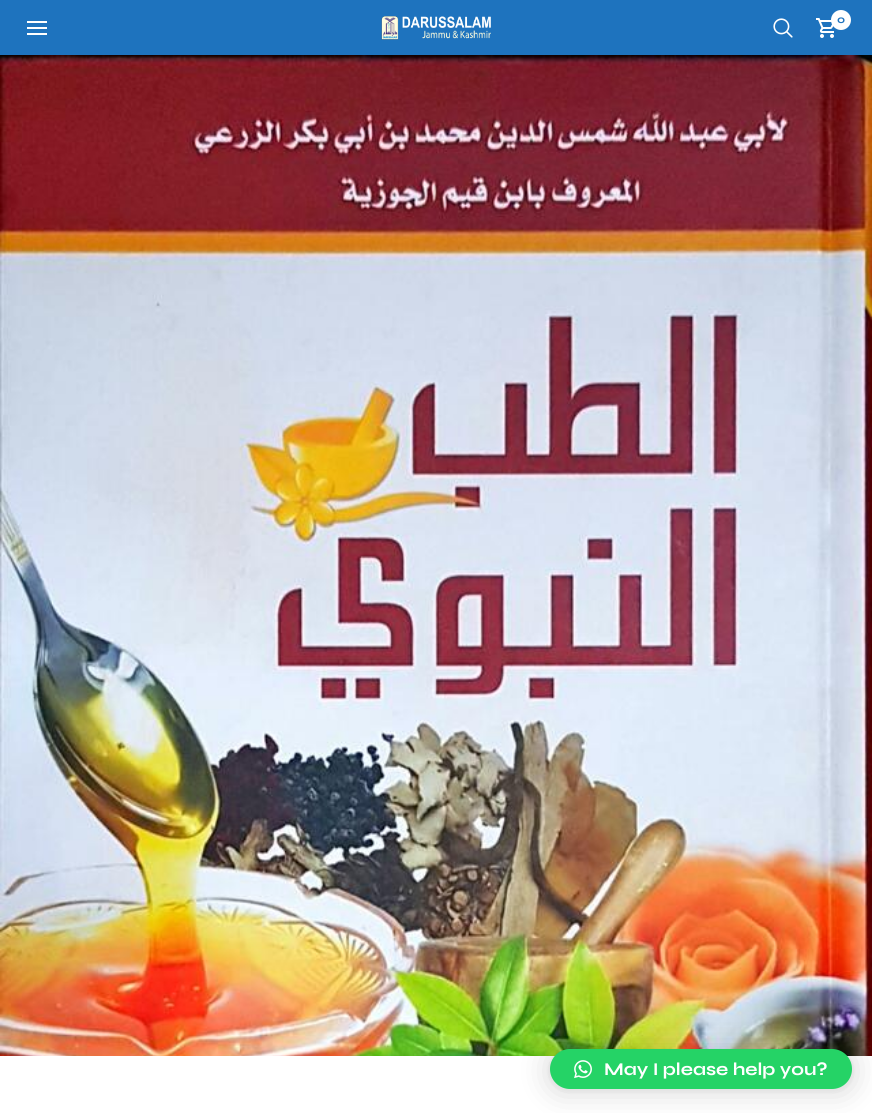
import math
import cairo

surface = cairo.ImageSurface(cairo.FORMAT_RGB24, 872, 1113)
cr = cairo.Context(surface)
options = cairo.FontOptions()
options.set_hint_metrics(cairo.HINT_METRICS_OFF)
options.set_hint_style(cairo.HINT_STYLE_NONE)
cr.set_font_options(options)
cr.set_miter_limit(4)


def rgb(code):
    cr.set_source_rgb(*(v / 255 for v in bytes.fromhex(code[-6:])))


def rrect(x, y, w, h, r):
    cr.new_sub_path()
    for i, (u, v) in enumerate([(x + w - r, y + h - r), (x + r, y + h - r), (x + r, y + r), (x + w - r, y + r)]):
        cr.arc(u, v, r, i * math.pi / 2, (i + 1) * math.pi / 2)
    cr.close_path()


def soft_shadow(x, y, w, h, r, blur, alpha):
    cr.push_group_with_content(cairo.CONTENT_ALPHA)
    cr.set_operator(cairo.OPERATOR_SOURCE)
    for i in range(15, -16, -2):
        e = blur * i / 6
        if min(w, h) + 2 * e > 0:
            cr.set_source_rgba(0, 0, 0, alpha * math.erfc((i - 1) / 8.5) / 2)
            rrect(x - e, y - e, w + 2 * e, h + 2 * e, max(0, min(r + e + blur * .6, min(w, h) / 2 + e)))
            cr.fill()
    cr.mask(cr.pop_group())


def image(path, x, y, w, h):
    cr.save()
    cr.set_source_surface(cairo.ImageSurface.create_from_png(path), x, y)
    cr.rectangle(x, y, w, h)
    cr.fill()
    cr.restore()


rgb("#ffffff")
cr.paint()
rgb("#1e73be")
cr.rectangle(0, 0, 872, 55)
cr.fill()
image("img/1.png", 27, 21, 20, 14)
image("img/2.png", 381, 16, 110, 24)
image("img/3.png", 773, 18, 20, 20)
image("img/4.png", 816, 18, 18, 20)
rgb("#ffffff")
cr.arc(841, 20, 10, 0, 2 * math.pi)
cr.fill()
image("img/5.png", 0, 55, 872, 1001)
rgb("#000000")
soft_shadow(550, 1051, 302, 40, 20, 16, 0.16)
soft_shadow(550, 1050, 302, 40, 20, 3, 0.06)
rgb("#25d366")
rrect(550, 1049, 302, 40, 20)
cr.fill()
image("img/6.png", 574, 1060, 18, 19)
cr.select_font_face("Syne", cairo.FONT_SLANT_NORMAL, cairo.FONT_WEIGHT_BOLD)
cr.set_font_size(11)
rgb("#1e73be")
cr.move_to(837, 23)
cr.show_text("0")
cr.set_font_size(18)
rgb("#ffffff")
cr.move_to(604, 1075)
cr.show_text("May I please help you?")
surface.write_to_png("page.png")
